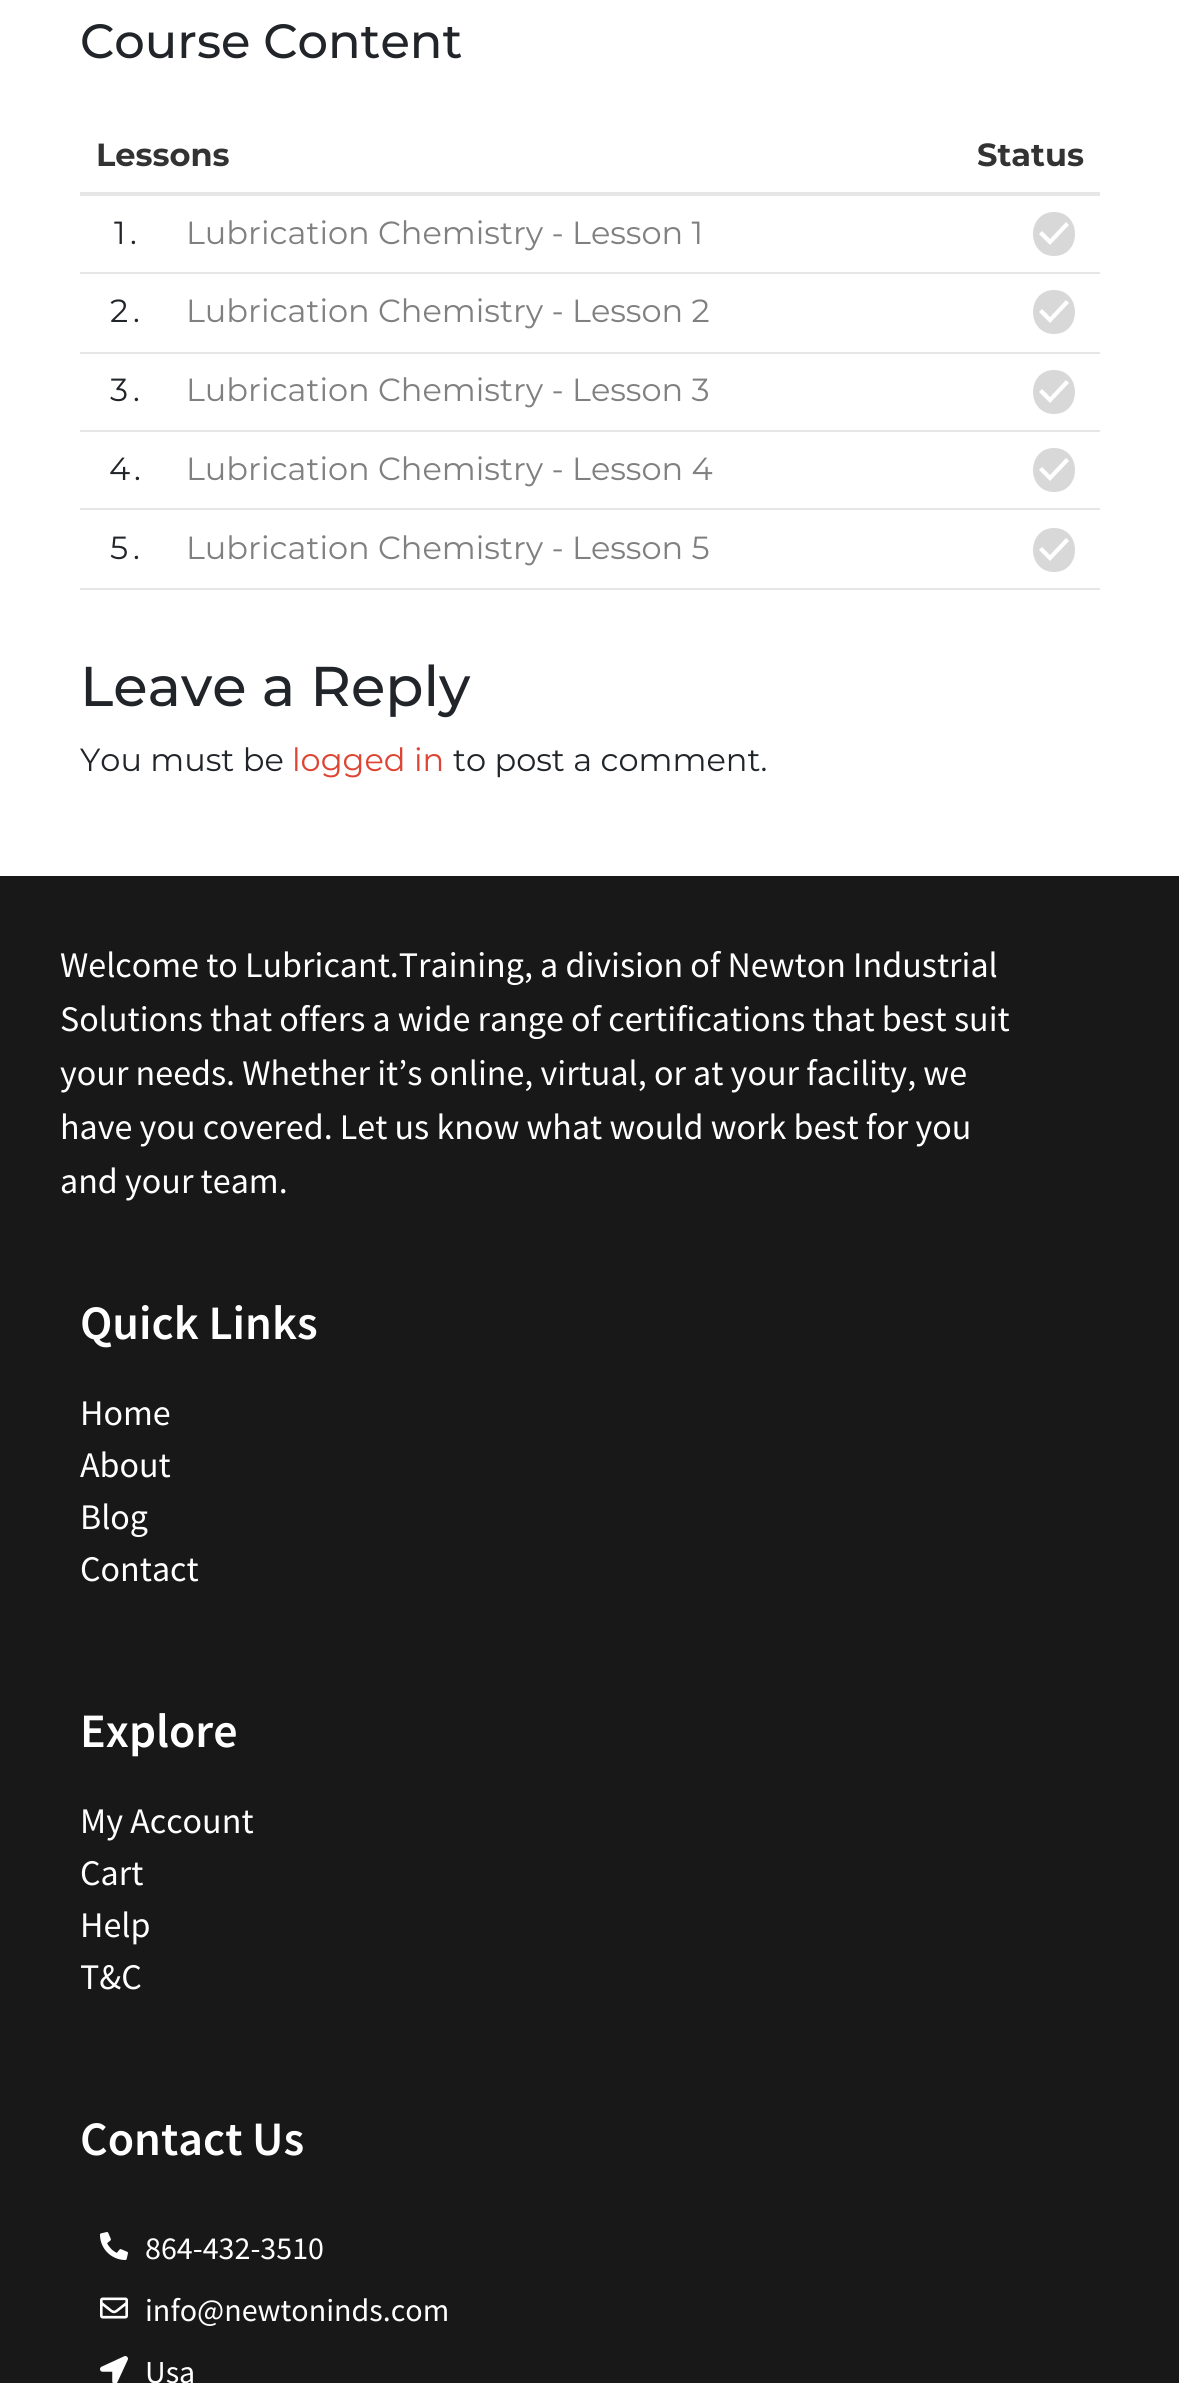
import math
import cairo

surface = cairo.ImageSurface(cairo.FORMAT_RGB24, 1179, 2383)
cr = cairo.Context(surface)
options = cairo.FontOptions()
options.set_hint_metrics(cairo.HINT_METRICS_OFF)
options.set_hint_style(cairo.HINT_STYLE_NONE)
cr.set_font_options(options)
cr.set_miter_limit(4)


def rgb(code):
    cr.set_source_rgb(*(v / 255 for v in bytes.fromhex(code[-6:])))


def image(path, x, y, w, h):
    cr.save()
    cr.set_source_surface(cairo.ImageSurface.create_from_png(path), x, y)
    cr.rectangle(x, y, w, h)
    cr.fill()
    cr.restore()


rgb("#ffffff")
cr.paint()
rgb("#e6e6e6")
cr.rectangle(80, 192, 1020, 4)
cr.fill()
cr.rectangle(80, 272, 1020, 2)
cr.fill()
rgb("#d8d8d8")
cr.new_path()
cr.move_to(1050, 245)
cr.line_to(1069, 225)
cr.line_to(1066, 222)
cr.line_to(1050, 239)
cr.line_to(1042, 231)
cr.line_to(1039, 234)
cr.close_path()
cr.move_to(1054, 212)
cr.curve_to(1082, 212, 1082, 256, 1054, 256)
cr.curve_to(1026, 256, 1026, 212, 1054, 212)
cr.close_path()
cr.fill()
rgb("#e6e6e6")
cr.rectangle(80, 352, 1020, 2)
cr.fill()
rgb("#d8d8d8")
cr.new_path()
cr.move_to(1050, 323)
cr.line_to(1069, 303)
cr.line_to(1066, 300)
cr.line_to(1050, 317)
cr.line_to(1042, 309)
cr.line_to(1039, 312)
cr.close_path()
cr.move_to(1054, 290)
cr.curve_to(1082, 290, 1082, 334, 1054, 334)
cr.curve_to(1026, 334, 1026, 290, 1054, 290)
cr.close_path()
cr.fill()
rgb("#e6e6e6")
cr.rectangle(80, 430, 1020, 2)
cr.fill()
rgb("#d8d8d8")
cr.new_path()
cr.move_to(1050, 403)
cr.line_to(1069, 383)
cr.line_to(1066, 380)
cr.line_to(1050, 397)
cr.line_to(1042, 389)
cr.line_to(1039, 392)
cr.close_path()
cr.move_to(1054, 370)
cr.curve_to(1082, 370, 1082, 414, 1054, 414)
cr.curve_to(1026, 414, 1026, 370, 1054, 370)
cr.close_path()
cr.fill()
rgb("#e6e6e6")
cr.rectangle(80, 508, 1020, 2)
cr.fill()
rgb("#d8d8d8")
cr.new_path()
cr.move_to(1050, 481)
cr.line_to(1069, 461)
cr.line_to(1066, 458)
cr.line_to(1050, 475)
cr.line_to(1042, 467)
cr.line_to(1039, 470)
cr.close_path()
cr.move_to(1054, 448)
cr.curve_to(1082, 448, 1082, 492, 1054, 492)
cr.curve_to(1026, 492, 1026, 448, 1054, 448)
cr.close_path()
cr.fill()
rgb("#e6e6e6")
cr.rectangle(80, 588, 1020, 2)
cr.fill()
rgb("#d8d8d8")
cr.new_path()
cr.move_to(1050, 561)
cr.line_to(1069, 541)
cr.line_to(1066, 538)
cr.line_to(1050, 555)
cr.line_to(1042, 547)
cr.line_to(1039, 550)
cr.close_path()
cr.move_to(1054, 528)
cr.curve_to(1082, 528, 1082, 572, 1054, 572)
cr.curve_to(1026, 572, 1026, 528, 1054, 528)
cr.close_path()
cr.fill()
rgb("#181818")
cr.rectangle(0, 876, 1179, 1507)
cr.fill()
image("img/1.png", 100, 2232, 28, 28)
image("img/2.png", 100, 2297, 28, 22)
image("img/3.png", 100, 2356, 28, 27)
cr.select_font_face("Montserrat Medium")
cr.set_font_size(48)
rgb("#212529")
cr.move_to(80, 58)
cr.show_text("Course Content")
cr.select_font_face("Montserrat", cairo.FONT_SLANT_NORMAL, cairo.FONT_WEIGHT_BOLD)
cr.set_font_size(32)
rgb("#333333")
cr.move_to(96, 166)
cr.show_text("Lessons")
cr.move_to(977, 166)
cr.show_text("Status")
cr.select_font_face("Montserrat")
rgb("#212529")
cr.move_to(114, 244)
cr.show_text("1")
cr.move_to(130, 244)
cr.show_text(".")
rgb("#808080")
cr.move_to(186, 244)
cr.show_text("Lubrication Chemistry - Lesson 1")
rgb("#212529")
cr.move_to(110, 322)
cr.show_text("2")
cr.move_to(133, 322)
cr.show_text(".")
rgb("#808080")
cr.move_to(186, 322)
cr.show_text("Lubrication Chemistry - Lesson 2")
rgb("#212529")
cr.move_to(110, 401)
cr.show_text("3")
cr.move_to(133, 401)
cr.show_text(".")
rgb("#808080")
cr.move_to(186, 401)
cr.show_text("Lubrication Chemistry - Lesson 3")
rgb("#212529")
cr.move_to(109, 480)
cr.show_text("4")
cr.move_to(134, 480)
cr.show_text(".")
rgb("#808080")
cr.move_to(186, 480)
cr.show_text("Lubrication Chemistry - Lesson 4")
rgb("#212529")
cr.move_to(110, 559)
cr.show_text("5")
cr.move_to(133, 559)
cr.show_text(".")
rgb("#808080")
cr.move_to(186, 559)
cr.show_text("Lubrication Chemistry - Lesson 5")
cr.select_font_face("Montserrat Medium")
cr.set_font_size(56)
rgb("#212529")
cr.move_to(80, 706)
cr.show_text("Leave a Reply")
cr.select_font_face("Montserrat")
cr.set_font_size(32)
cr.move_to(80, 771)
cr.show_text("You must be")
rgb("#dd4433")
cr.move_to(292, 771)
cr.show_text("logged in")
rgb("#212529")
cr.move_to(453, 771)
cr.show_text("to post a comment.")
cr.select_font_face("Source Sans Pro")
cr.set_font_size(36)
rgb("#ffffff")
for x, y, s in [
    (60, 977, "Welcome to Lubricant.Training, a division of Newton Industrial"),
    (60, 1031, "Solutions that offers a wide range of certifications that best suit"),
    (60, 1085, "your needs. Whether it’s online, virtual, or at your facility, we"),
    (60, 1139, "have you covered. Let us know what would work best for you"),
    (60, 1193, "and your team."),
]:
    cr.move_to(x, y)
    cr.show_text(s)
cr.select_font_face("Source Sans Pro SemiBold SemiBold")
cr.set_font_size(48)
cr.move_to(80, 1339)
cr.show_text("Quick Links")
cr.select_font_face("Source Sans Pro")
cr.set_font_size(36)
for x, y, s in [
    (80, 1425, "Home"),
    (80, 1477, "About"),
    (80, 1529, "Blog"),
    (80, 1581, "Contact"),
]:
    cr.move_to(x, y)
    cr.show_text(s)
cr.select_font_face("Source Sans Pro SemiBold SemiBold")
cr.set_font_size(48)
cr.move_to(80, 1747)
cr.show_text("Explore")
cr.select_font_face("Source Sans Pro")
cr.set_font_size(36)
for x, y, s in [
    (80, 1833, "My Account"),
    (80, 1885, "Cart"),
    (80, 1937, "Help"),
    (80, 1989, "T&C"),
]:
    cr.move_to(x, y)
    cr.show_text(s)
cr.select_font_face("Source Sans Pro SemiBold SemiBold")
cr.set_font_size(48)
cr.move_to(80, 2155)
cr.show_text("Contact Us")
cr.select_font_face("Source Sans Pro")
cr.set_font_size(32)
for x, y, s in [
    (145, 2259, "864-432-3510"),
    (145, 2321, "info@newtoninds.com"),
    (145, 2383, "Usa"),
]:
    cr.move_to(x, y)
    cr.show_text(s)
surface.write_to_png("page.png")
